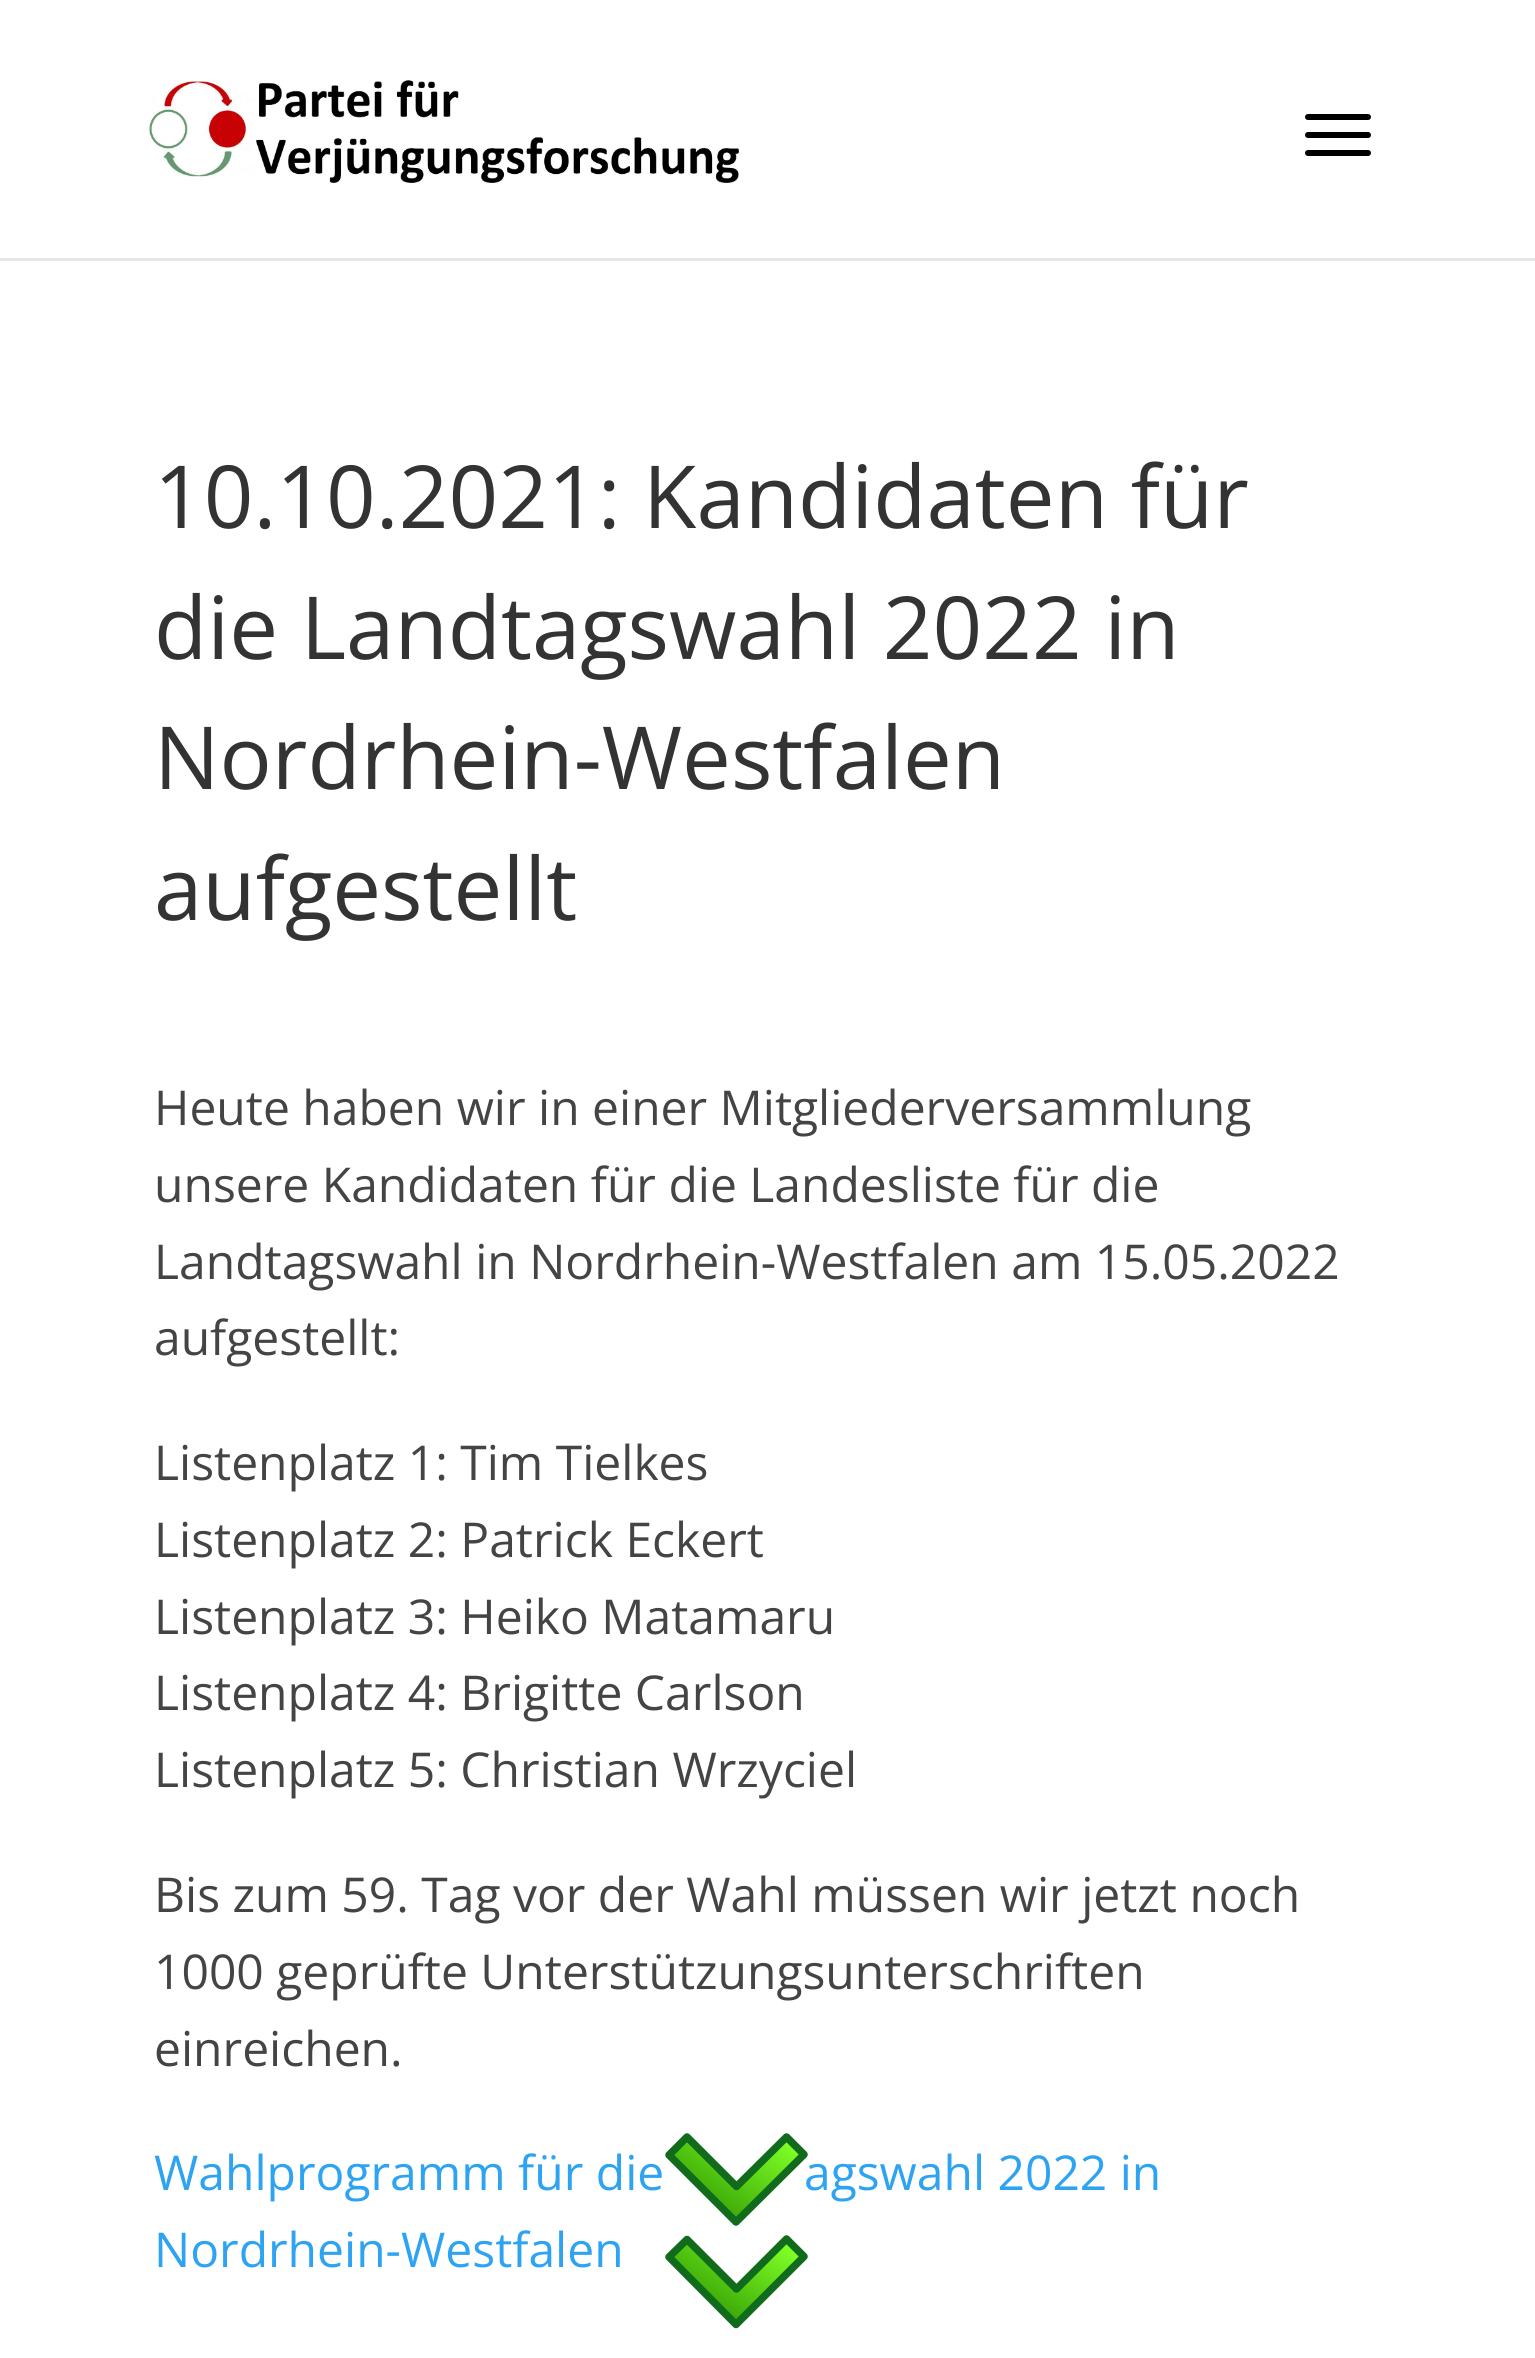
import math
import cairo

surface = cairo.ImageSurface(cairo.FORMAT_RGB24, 1535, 2358)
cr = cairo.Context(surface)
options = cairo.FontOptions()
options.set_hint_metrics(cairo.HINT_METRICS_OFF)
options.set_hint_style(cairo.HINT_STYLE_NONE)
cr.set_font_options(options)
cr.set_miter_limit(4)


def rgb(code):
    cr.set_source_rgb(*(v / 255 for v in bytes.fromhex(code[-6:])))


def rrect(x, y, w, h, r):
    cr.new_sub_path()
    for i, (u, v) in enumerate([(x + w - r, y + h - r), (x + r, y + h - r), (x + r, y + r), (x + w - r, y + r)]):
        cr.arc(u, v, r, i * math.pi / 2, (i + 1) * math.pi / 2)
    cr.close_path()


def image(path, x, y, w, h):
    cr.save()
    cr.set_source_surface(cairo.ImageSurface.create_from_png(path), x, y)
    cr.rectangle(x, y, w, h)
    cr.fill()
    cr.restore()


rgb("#ffffff")
cr.paint()
rgb("#e6e6e6")
cr.rectangle(0, 258, 1535, 3)
cr.fill()
image("img/1.png", 148, 80, 591, 103)
rgb("#000000")
rrect(1305, 114, 66, 6, 3)
cr.fill()
rrect(1305, 132, 66, 6, 3)
cr.fill()
rrect(1305, 150, 66, 6, 3)
cr.fill()
gradient = cairo.LinearGradient(793, 2145, 725, 2243)
gradient.add_color_stop_rgba(0, 0.502, 1, 0.149, 1)
gradient.add_color_stop_rgba(1, 0.173, 0.588, 0, 1)
cr.set_source(gradient)
cr.new_path()
cr.move_to(804, 2154)
cr.line_to(786, 2137)
cr.line_to(736, 2187)
cr.line_to(687, 2137)
cr.line_to(669, 2155)
cr.line_to(736, 2222)
cr.close_path()
cr.fill()
gradient = cairo.LinearGradient(791, 2249, 728, 2342)
gradient.add_color_stop_rgba(0, 0.502, 1, 0.149, 1)
gradient.add_color_stop_rgba(1, 0.173, 0.588, 0, 1)
cr.set_source(gradient)
cr.new_path()
cr.move_to(804, 2256)
cr.line_to(786, 2239)
cr.line_to(736, 2289)
cr.line_to(687, 2239)
cr.line_to(669, 2257)
cr.line_to(736, 2324)
cr.close_path()
cr.fill()
cr.new_path()
cr.move_to(804, 2256.5)
cr.line_to(786.5, 2239)
cr.line_to(736.5, 2289)
cr.line_to(687, 2239.5)
cr.line_to(669, 2257)
cr.line_to(736, 2324.5)
cr.close_path()
rgb("#116b1c")
cr.set_line_width(7.5)
cr.set_line_cap(cairo.LINE_CAP_ROUND)
cr.set_line_join(cairo.LINE_JOIN_ROUND)
cr.stroke()
cr.select_font_face("Open Sans")
cr.set_font_size(87)
rgb("#333333")
for x, y, s in [
    (154, 528, "10.10.2021: Kandidaten für"),
    (154, 659, "die Landtagswahl 2022 in"),
    (154, 789, "Nordrhein-Westfalen"),
    (154, 920, "aufgestellt"),
]:
    cr.move_to(x, y)
    cr.show_text(s)
cr.set_font_size(48)
rgb("#444444")
for x, y, s in [
    (154, 1125, "Heute haben wir in einer Mitgliederversammlung"),
    (154, 1202, "unsere Kandidaten für die Landesliste für die"),
    (154, 1279, "Landtagswahl in Nordrhein-Westfalen am 15.05.2022"),
    (154, 1355, "aufgestellt:"),
    (154, 1480, "Listenplatz 1: Tim Tielkes"),
    (154, 1557, "Listenplatz 2: Patrick Eckert"),
    (154, 1634, "Listenplatz 3: Heiko Matamaru"),
    (154, 1710, "Listenplatz 4: Brigitte Carlson"),
    (154, 1787, "Listenplatz 5: Christian Wrzyciel"),
    (154, 1912, "Bis zum 59. Tag vor der Wahl müssen wir jetzt noch"),
    (154, 1989, "1000 geprüfte Unterstützungsunterschriften"),
    (154, 2066, "einreichen."),
]:
    cr.move_to(x, y)
    cr.show_text(s)
rgb("#2ea3f2")
for x, y, s in [
    (154, 2190, "Wahlprogramm für die"),
    (804, 2190, "agswahl 2022 in"),
    (154, 2267, "Nordrhein-Westfalen"),
]:
    cr.move_to(x, y)
    cr.show_text(s)
cr.new_path()
cr.move_to(804, 2154.5)
cr.line_to(786.5, 2137)
cr.line_to(736.5, 2186.5)
cr.line_to(687, 2137)
cr.line_to(669, 2155)
cr.line_to(736, 2222)
cr.close_path()
rgb("#116b1c")
cr.stroke()
surface.write_to_png("page.png")
